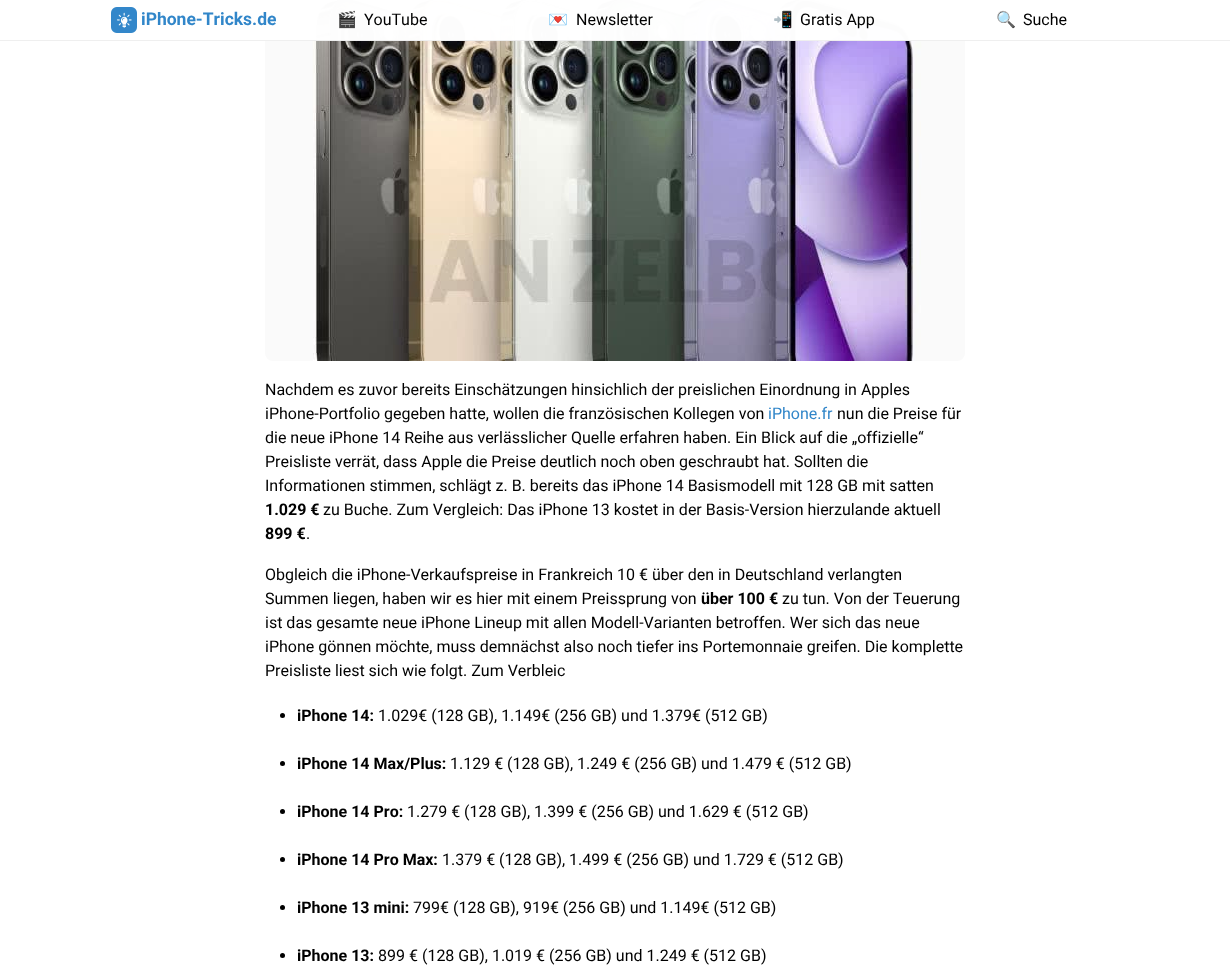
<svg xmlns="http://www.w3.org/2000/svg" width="1230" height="970">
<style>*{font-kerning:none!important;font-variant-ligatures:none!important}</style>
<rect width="100%" height="100%" fill="#fff"/>
<image x="265" y="0" width="700" height="361" href="media/2.png"/>
<rect x="265" width="700" height="40" fill="#fffffffc"/>
<rect y="40" width="1230" height="1" fill="#efefef"/>
<image x="111" y="7" width="26" height="26" href="media/1.png"/>
<text x="141" y="25" style="font-family:Roboto;font-size:17.5px;font-weight:bold;fill:#3186c9">iPhone-Tricks.de</text>
<text x="337" y="25" style="font-family:Noto Color Emoji;font-size:16px;fill:#000">🎬</text>
<text x="364" y="25" style="font-family:Roboto;font-size:16px;fill:#000">YouTube</text>
<text x="548" y="25" style="font-family:Noto Color Emoji;font-size:16px;fill:#000">💌</text>
<text x="576" y="25" style="font-family:Roboto;font-size:16px;fill:#000">Newsletter</text>
<text x="773" y="25" style="font-family:Noto Color Emoji;font-size:16px;fill:#000">📲</text>
<text x="800" y="25" style="font-family:Roboto;font-size:16px;fill:#000">Gratis App</text>
<text x="996" y="25" style="font-family:Noto Color Emoji;font-size:16px;fill:#000">🔍</text>
<text x="1023" y="25" style="font-family:Roboto;font-size:16px;fill:#000">Suche</text>
<text x="265" y="395" style="font-family:Roboto;font-size:16px;fill:#000">Nachdem es zuvor bereits Einschätzungen hinsichlich der preislichen Einordnung in Apples</text>
<text x="265" y="419" style="font-family:Roboto;font-size:16px;fill:#000">iPhone-Portfolio gegeben hatte, wollen die französischen Kollegen von</text>
<text x="768" y="419" style="font-family:Roboto;font-size:16px;fill:#3186c9">iPhone.fr</text>
<text x="837" y="419" style="font-family:Roboto;font-size:16px;fill:#000">nun die Preise für</text>
<text x="265" y="443" style="font-family:Roboto;font-size:16px;fill:#000">die neue iPhone 14 Reihe aus verlässlicher Quelle erfahren haben. Ein Blick auf die „offizielle“</text>
<text x="265" y="467" style="font-family:Roboto;font-size:16px;fill:#000">Preisliste verrät, dass Apple die Preise deutlich noch oben geschraubt hat. Sollten die</text>
<text x="265" y="491" style="font-family:Roboto;font-size:16px;fill:#000">Informationen stimmen, schlägt z. B. bereits das iPhone 14 Basismodell mit 128 GB mit satten</text>
<text x="265" y="515" style="font-family:Roboto;font-size:16px;font-weight:bold;fill:#000">1.029 €</text>
<text x="323" y="515" style="font-family:Roboto;font-size:16px;fill:#000">zu Buche. Zum Vergleich: Das iPhone 13 kostet in der Basis-Version hierzulande aktuell</text>
<text x="265" y="539" style="font-family:Roboto;font-size:16px;font-weight:bold;fill:#000">899 €</text>
<text x="306" y="539" style="font-family:Roboto;font-size:16px;fill:#000">.</text>
<text x="265" y="580" style="font-family:Roboto;font-size:16px;fill:#000">Obgleich die iPhone-Verkaufspreise in Frankreich 10 € über den in Deutschland verlangten</text>
<text x="265" y="604" style="font-family:Roboto;font-size:16px;fill:#000">Summen liegen, haben wir es hier mit einem Preissprung von</text>
<text x="701" y="604" style="font-family:Roboto;font-size:16px;font-weight:bold;fill:#000">über 100 €</text>
<text x="782" y="604" style="font-family:Roboto;font-size:16px;fill:#000">zu tun. Von der Teuerung</text>
<text x="265" y="628" style="font-family:Roboto;font-size:16px;fill:#000">ist das gesamte neue iPhone Lineup mit allen Modell-Varianten betroffen. Wer sich das neue</text>
<text x="265" y="652" style="font-family:Roboto;font-size:16px;fill:#000">iPhone gönnen möchte, muss demnächst also noch tiefer ins Portemonnaie greifen. Die komplette</text>
<text x="265" y="676" style="font-family:Roboto;font-size:16px;fill:#000">Preisliste liest sich wie folgt. Zum Verbleic</text>
<circle cx="282.5" cy="715.5" r="2.5" fill="#000"/>
<text x="297" y="721" style="font-family:Roboto;font-size:16px;font-weight:bold;fill:#000">iPhone 14:</text>
<text x="378" y="721" style="font-family:Roboto;font-size:16px;fill:#000">1.029€ (128 GB), 1.149€ (256 GB) und 1.379€ (512 GB)</text>
<circle cx="282.5" cy="763.5" r="2.5" fill="#000"/>
<text x="297" y="769" style="font-family:Roboto;font-size:16px;font-weight:bold;fill:#000">iPhone 14 Max/Plus:</text>
<text x="450" y="769" style="font-family:Roboto;font-size:16px;fill:#000">1.129 € (128 GB), 1.249 € (256 GB) und 1.479 € (512 GB)</text>
<circle cx="282.5" cy="811.5" r="2.5" fill="#000"/>
<text x="297" y="817" style="font-family:Roboto;font-size:16px;font-weight:bold;fill:#000">iPhone 14 Pro:</text>
<text x="407" y="817" style="font-family:Roboto;font-size:16px;fill:#000">1.279 € (128 GB), 1.399 € (256 GB) und 1.629 € (512 GB)</text>
<circle cx="282.5" cy="859.5" r="2.5" fill="#000"/>
<text x="297" y="865" style="font-family:Roboto;font-size:16px;font-weight:bold;fill:#000">iPhone 14 Pro Max:</text>
<text x="442" y="865" style="font-family:Roboto;font-size:16px;fill:#000">1.379 € (128 GB), 1.499 € (256 GB) und 1.729 € (512 GB)</text>
<circle cx="282.5" cy="907.5" r="2.5" fill="#000"/>
<text x="297" y="913" style="font-family:Roboto;font-size:16px;font-weight:bold;fill:#000">iPhone 13 mini:</text>
<text x="413" y="913" style="font-family:Roboto;font-size:16px;fill:#000">799€ (128 GB), 919€ (256 GB) und 1.149€ (512 GB)</text>
<circle cx="282.5" cy="955.5" r="2.5" fill="#000"/>
<text x="297" y="961" style="font-family:Roboto;font-size:16px;font-weight:bold;fill:#000">iPhone 13:</text>
<text x="378" y="961" style="font-family:Roboto;font-size:16px;fill:#000">899 € (128 GB), 1.019 € (256 GB) und 1.249 € (512 GB)</text>
</svg>
